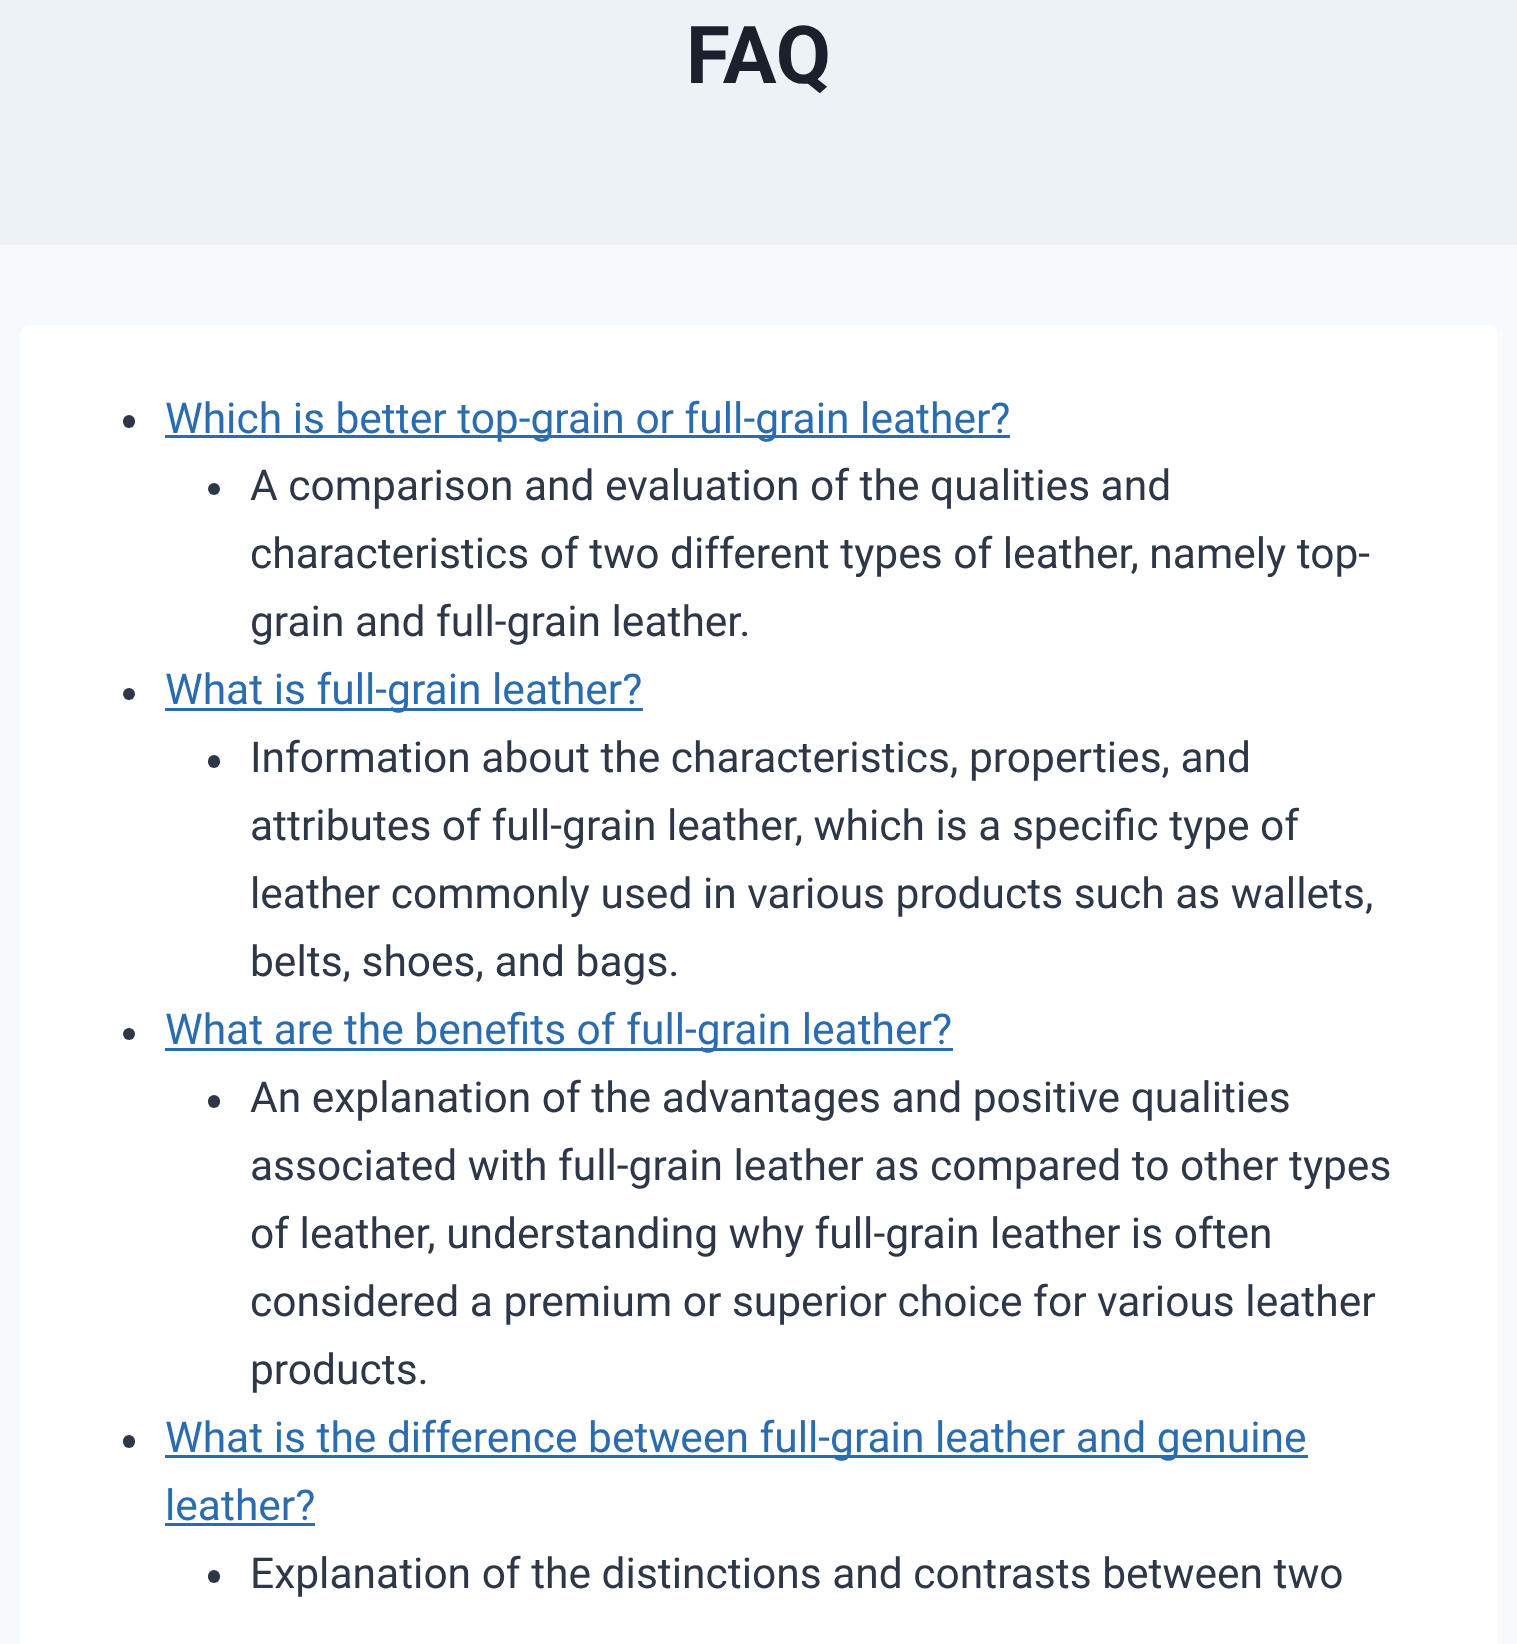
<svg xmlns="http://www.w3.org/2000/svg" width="1517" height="1644">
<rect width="100%" height="100%" fill="#f7fafc"/>
<rect width="1517" height="245" fill="#edf2f7"/>
<text x="686" y="83" style="font-family:Roboto;font-size:80px;font-weight:bold;fill:#1a202c">FAQ</text>
<rect x="20" y="325" width="1478" height="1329" rx="10" fill="#fff"/>
<rect x="123" y="415" width="12" height="13" rx="6" fill="#2d3748"/>
<rect x="165" y="435" width="845" height="3" fill="#2b6cb0"/>
<text x="165" y="433" style="font-family:Roboto;font-size:42.5px;fill:#2b6cb0">Which is better top-grain or full-grain leather?</text>
<circle cx="214" cy="489" r="6" fill="#2d3748"/>
<text x="250" y="500" style="font-family:Roboto;font-size:42.5px;fill:#2d3748">A comparison and evaluation of the qualities and</text>
<text x="250" y="568" style="font-family:Roboto;font-size:42.5px;fill:#2d3748">characteristics of two different types of leather, namely top-</text>
<text x="250" y="636" style="font-family:Roboto;font-size:42.5px;fill:#2d3748">grain and full-grain leather.</text>
<circle cx="129" cy="694" r="6" fill="#2d3748"/>
<rect x="165" y="708" width="478" height="3" fill="#2b6cb0"/>
<text x="165" y="704" style="font-family:Roboto;font-size:42.5px;fill:#2b6cb0">What is full-grain leather?</text>
<rect x="208" y="755" width="12" height="13" rx="6" fill="#2d3748"/>
<text x="250" y="772" style="font-family:Roboto;font-size:42.5px;fill:#2d3748">Information about the characteristics, properties, and</text>
<text x="250" y="840" style="font-family:Roboto;font-size:42.5px;fill:#2d3748">attributes of full-grain leather, which is a specific type of</text>
<text x="250" y="908" style="font-family:Roboto;font-size:42.5px;fill:#2d3748">leather commonly used in various products such as wallets,</text>
<text x="250" y="976" style="font-family:Roboto;font-size:42.5px;fill:#2d3748">belts, shoes, and bags.</text>
<circle cx="129" cy="1034" r="6" fill="#2d3748"/>
<rect x="165" y="1048" width="788" height="3" fill="#2b6cb0"/>
<text x="165" y="1044" style="font-family:Roboto;font-size:42.5px;fill:#2b6cb0">What are the benefits of full-grain leather?</text>
<rect x="208" y="1095" width="12" height="13" rx="6" fill="#2d3748"/>
<text x="250" y="1112" style="font-family:Roboto;font-size:42.5px;fill:#2d3748">An explanation of the advantages and positive qualities</text>
<text x="250" y="1180" style="font-family:Roboto;font-size:42.5px;fill:#2d3748">associated with full-grain leather as compared to other types</text>
<text x="250" y="1248" style="font-family:Roboto;font-size:42.5px;fill:#2d3748">of leather, understanding why full-grain leather is often</text>
<text x="250" y="1316" style="font-family:Roboto;font-size:42.5px;fill:#2d3748">considered a premium or superior choice for various leather</text>
<text x="250" y="1384" style="font-family:Roboto;font-size:42.5px;fill:#2d3748">products.</text>
<rect x="123" y="1435" width="12" height="13" rx="6" fill="#2d3748"/>
<rect x="165" y="1455" width="1143" height="3" fill="#2b6cb0"/>
<text x="165" y="1452" style="font-family:Roboto;font-size:42.5px;fill:#2b6cb0">What is the difference between full-grain leather and genuine</text>
<text x="165" y="1520" style="font-family:Roboto;font-size:42.5px;fill:#2b6cb0">leather?</text>
<rect x="165" y="1523" width="150" height="3" fill="#2b6cb0"/>
<rect x="208" y="1570" width="12" height="13" rx="6" fill="#2d3748"/>
<text x="250" y="1588" style="font-family:Roboto;font-size:42.5px;fill:#2d3748">Explanation of the distinctions and contrasts between two</text>
</svg>
